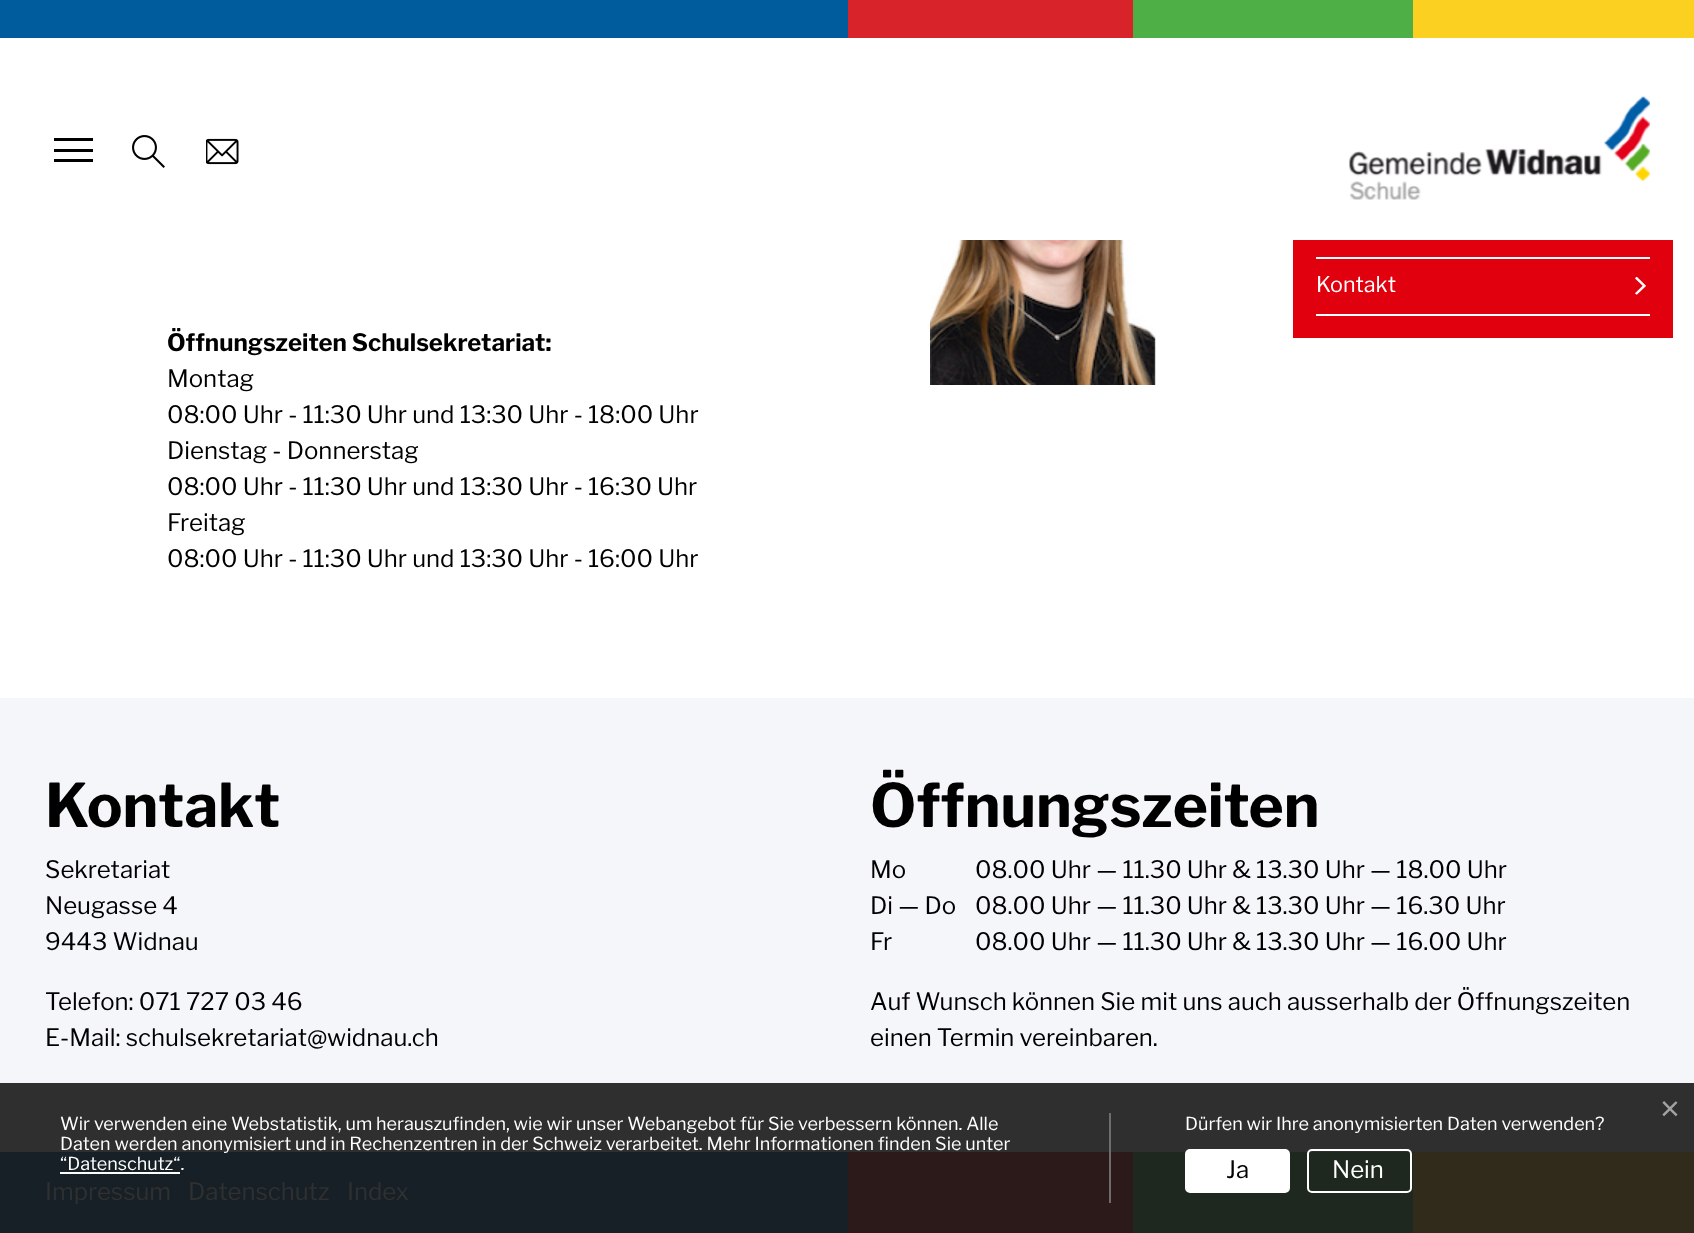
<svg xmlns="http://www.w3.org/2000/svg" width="1694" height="1233">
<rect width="100%" height="100%" fill="#fff"/>
<rect width="848" height="38" fill="#005c9c"/>
<rect x="848" width="285" height="38" fill="#d8232a"/>
<rect x="1133" width="280" height="38" fill="#4eaf46"/>
<rect x="1413" width="281" height="38" fill="#fbd020"/>
<rect x="54" y="138" width="39" height="3" fill="#000"/>
<rect x="54" y="149" width="39" height="3" fill="#000"/>
<rect x="54" y="159" width="39" height="3" fill="#000"/>
<image x="132" y="135" width="33" height="33" href="media/1.png"/>
<image x="206" y="138" width="33" height="27" href="media/2.png"/>
<image x="1349" y="96" width="301" height="104" href="media/3.png"/>
<rect x="1293" y="240" width="380" height="98" fill="#e1000d"/>
<rect x="1316" y="257" width="334" height="2" fill="#fff"/>
<rect x="1316" y="314" width="334" height="2" fill="#fff"/>
<text x="1316" y="292" style="font-family:Libre Franklin;font-size:21.5px;fill:#fff">Kontakt</text>
<image x="1635" y="277" width="11" height="18" href="media/4.png"/>
<image x="930" y="240" width="226" height="145" href="media/5.png"/>
<text x="167" y="351" style="font-family:Libre Franklin;font-size:24px;font-weight:bold;fill:#000">Öffnungszeiten Schulsekretariat:</text>
<text x="167" y="387" style="font-family:Libre Franklin;font-size:24px;fill:#000">Montag</text>
<text x="167" y="423" style="font-family:Libre Franklin;font-size:24px;fill:#000">08:00 Uhr - 11:30 Uhr und 13:30 Uhr - 18:00 Uhr</text>
<text x="167" y="459" style="font-family:Libre Franklin;font-size:24px;fill:#000">Dienstag - Donnerstag</text>
<text x="167" y="495" style="font-family:Libre Franklin;font-size:24px;fill:#000">08:00 Uhr - 11:30 Uhr und 13:30 Uhr - 16:30 Uhr</text>
<text x="167" y="531" style="font-family:Libre Franklin;font-size:24px;fill:#000">Freitag</text>
<text x="167" y="567" style="font-family:Libre Franklin;font-size:24px;fill:#000">08:00 Uhr - 11:30 Uhr und 13:30 Uhr - 16:00 Uhr</text>
<rect y="698" width="1694" height="385" fill="#f5f6fa"/>
<rect y="1083" width="1694" height="69" fill="#2f2f2f"/>
<text x="45" y="827" style="font-family:Libre Franklin;font-size:60px;font-weight:bold;fill:#000">Kontakt</text>
<text x="45" y="878" style="font-family:Libre Franklin;font-size:24px;fill:#000">Sekretariat</text>
<text x="45" y="914" style="font-family:Libre Franklin;font-size:24px;fill:#000">Neugasse 4</text>
<text x="45" y="950" style="font-family:Libre Franklin;font-size:24px;fill:#000">9443 Widnau</text>
<text x="45" y="1010" style="font-family:Libre Franklin;font-size:24px;fill:#000">Telefon: 071 727 03 46</text>
<text x="45" y="1046" style="font-family:Libre Franklin;font-size:24px;fill:#000">E-Mail: schulsekretariat@widnau.ch</text>
<text x="870" y="827" style="font-family:Libre Franklin;font-size:60px;font-weight:bold;fill:#000">Öffnungszeiten</text>
<text x="870" y="878" style="font-family:Libre Franklin;font-size:24px;fill:#000">Mo</text>
<text x="975" y="878" style="font-family:Libre Franklin;font-size:24px;fill:#000">08.00 Uhr — 11.30 Uhr &amp; 13.30 Uhr — 18.00 Uhr</text>
<text x="870" y="914" style="font-family:Libre Franklin;font-size:24px;fill:#000">Di — Do</text>
<text x="975" y="914" style="font-family:Libre Franklin;font-size:24px;fill:#000">08.00 Uhr — 11.30 Uhr &amp; 13.30 Uhr — 16.30 Uhr</text>
<text x="870" y="950" style="font-family:Libre Franklin;font-size:24px;fill:#000">Fr</text>
<text x="975" y="950" style="font-family:Libre Franklin;font-size:24px;fill:#000">08.00 Uhr — 11.30 Uhr &amp; 13.30 Uhr — 16.00 Uhr</text>
<text x="870" y="1010" style="font-family:Libre Franklin;font-size:24px;fill:#000">Auf Wunsch können Sie mit uns auch ausserhalb der Öffnungszeiten</text>
<text x="870" y="1046" style="font-family:Libre Franklin;font-size:24px;fill:#000">einen Termin vereinbaren.</text>
<rect y="1152" width="848" height="81" fill="#172026"/>
<rect x="848" y="1152" width="285" height="81" fill="#2c1a1b"/>
<rect x="1133" y="1152" width="280" height="81" fill="#1e281e"/>
<rect x="1413" y="1152" width="281" height="81" fill="#302b1a"/>
<text x="45" y="1200" style="font-family:Libre Franklin;font-size:24px;fill:#303030">Impressum</text>
<text x="188" y="1200" style="font-family:Libre Franklin;font-size:24px;fill:#303030">Datenschutz</text>
<text x="347" y="1200" style="font-family:Libre Franklin;font-size:24px;fill:#303030">Index</text>
<text x="1660" y="1120" style="font-family:Liberation Sans;font-size:34px;fill:#a2a2a2">×</text>
<rect x="1109" y="1113" width="2" height="90" fill="#6d6d6d"/>
<text x="60" y="1130" style="font-family:Libre Franklin;font-size:18px;fill:#fff">Wir verwenden eine Webstatistik, um herauszufinden, wie wir unser Webangebot für Sie verbessern können. Alle</text>
<text x="60" y="1150" style="font-family:Libre Franklin;font-size:18px;fill:#fff">Daten werden anonymisiert und in Rechenzentren in der Schweiz verarbeitet. Mehr Informationen finden Sie unter</text>
<text x="60" y="1170" style="font-family:Libre Franklin;font-size:18px;fill:#fff">“Datenschutz“.</text>
<rect x="60" y="1172" width="120" height="2" fill="#fff"/>
<text x="1185" y="1130" style="font-family:Libre Franklin;font-size:18px;fill:#fff">Dürfen wir Ihre anonymisierten Daten verwenden?</text>
<rect x="1186" y="1150" width="103" height="42" rx="4" fill="#fff" stroke="#fff" stroke-width="2"/>
<text x="1226" y="1178" style="font-family:Libre Franklin;font-size:24px;fill:#000">Ja</text>
<rect x="1308" y="1150" width="103" height="42" rx="4" fill="none" stroke="#fff" stroke-width="2"/>
<text x="1332" y="1178" style="font-family:Libre Franklin;font-size:24px;fill:#fff">Nein</text>
</svg>
